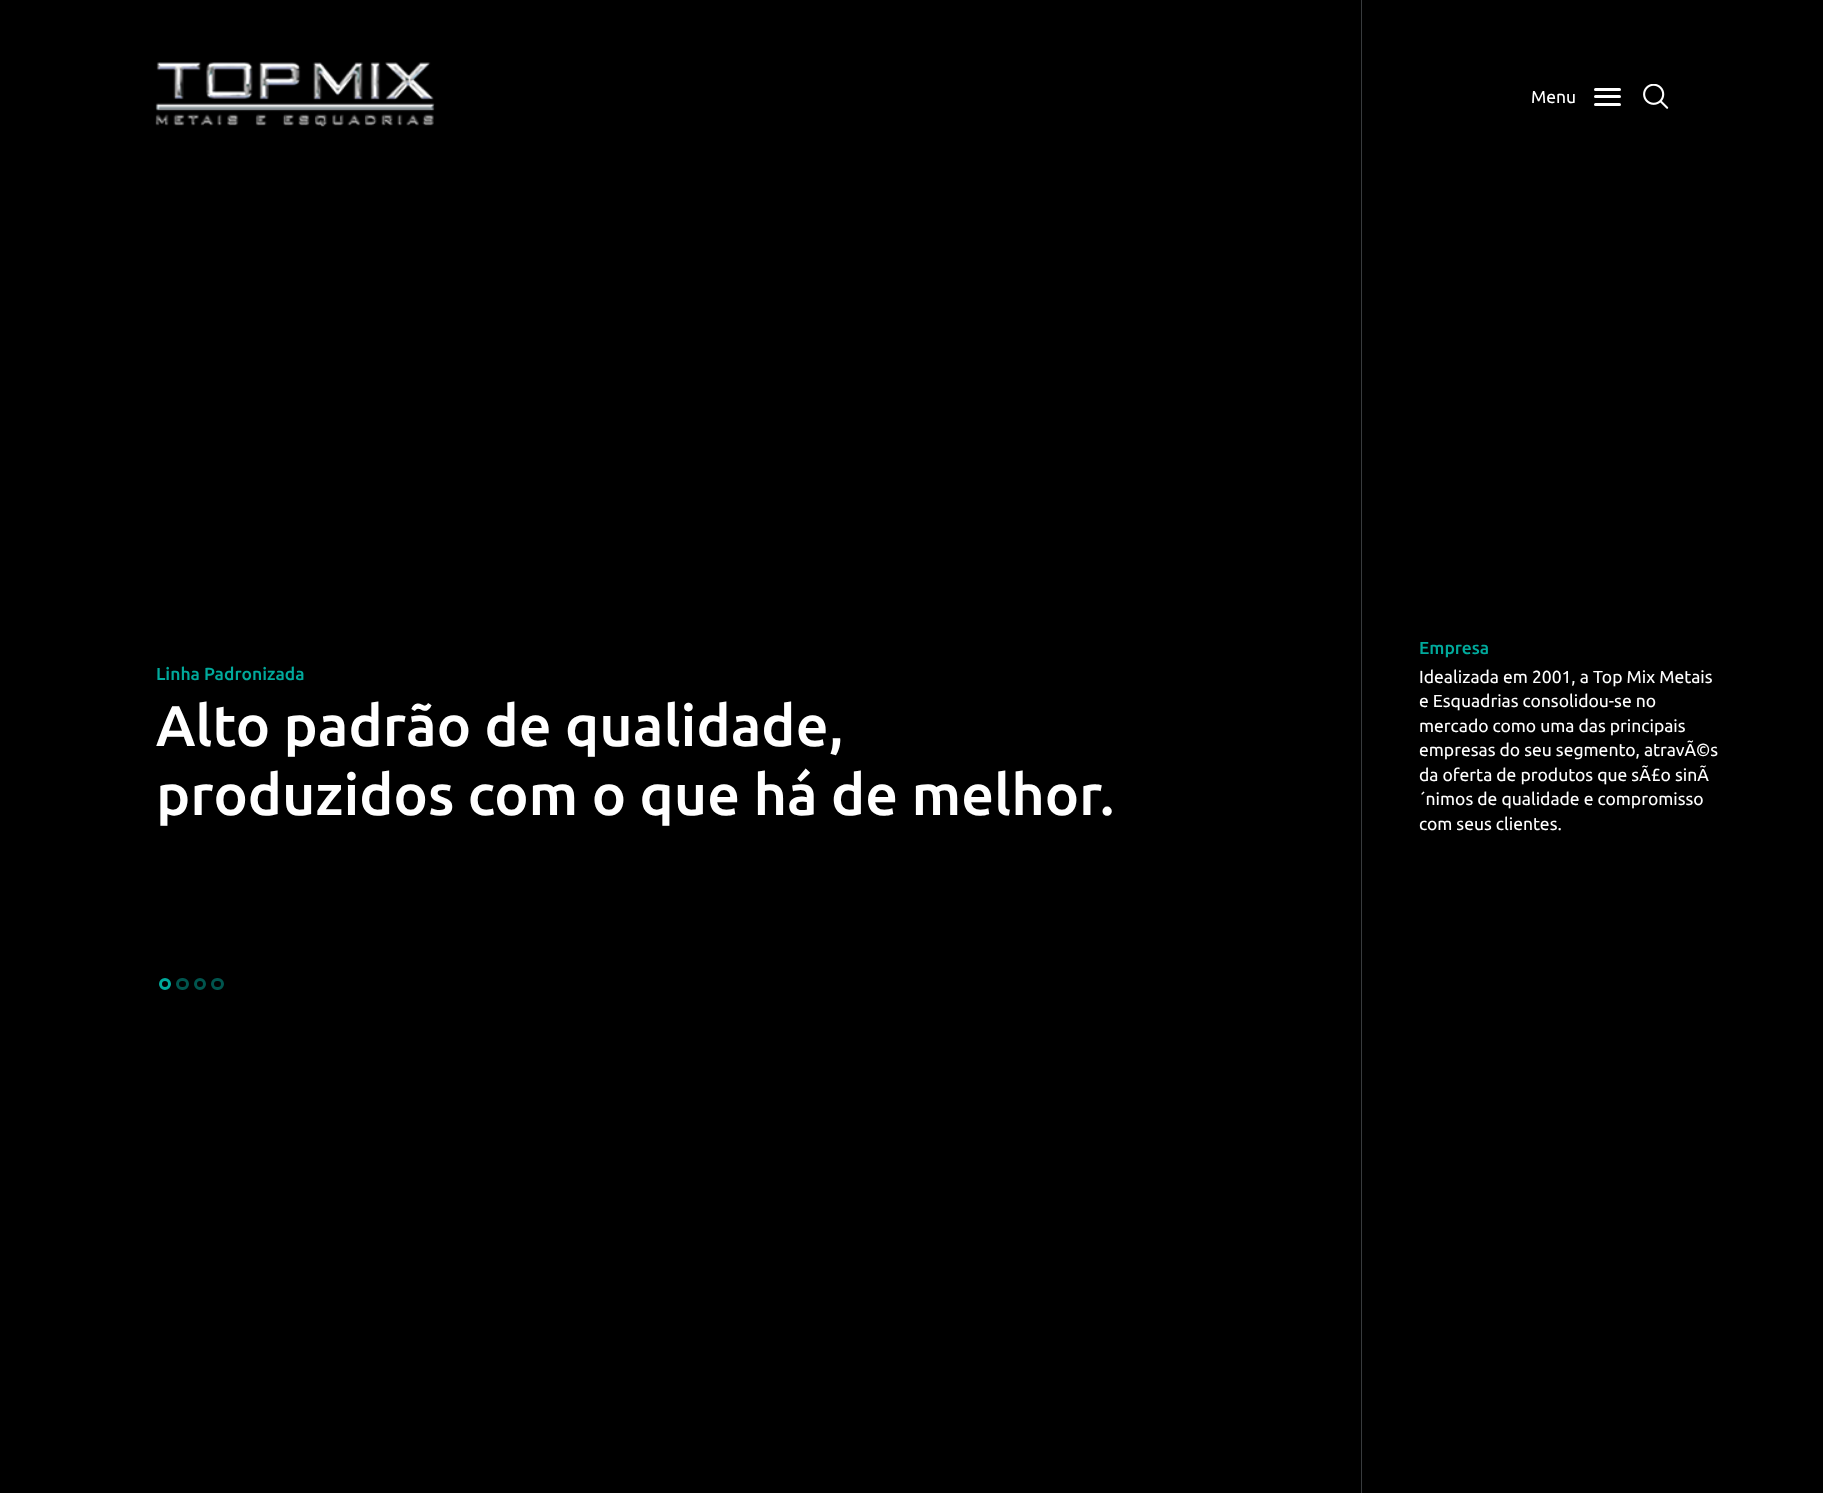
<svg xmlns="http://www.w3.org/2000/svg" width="1823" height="1493">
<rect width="100%" height="100%" fill="#000"/>
<image x="155" y="62" width="280" height="65" href="media/1.png"/>
<rect x="1594" y="88" width="27" height="3" rx="1.5" fill="#fff"/>
<text x="1531" y="103" style="font-family:Ubuntu;font-size:17.5px;fill:#fff">Menu</text>
<rect x="1594" y="95" width="27" height="3" rx="1.5" fill="#fff"/>
<rect x="1594" y="103" width="27" height="3" rx="1.5" fill="#fff"/>
<image x="1643" y="84" width="26" height="25" href="media/2.png"/>
<text x="156" y="680" style="font-family:Ubuntu;font-size:17.5px;font-weight:500;fill:#00aa9c">Linha Padronizada</text>
<text x="156" y="746" style="font-family:Ubuntu;font-size:57.5px;font-weight:500;fill:#fff">Alto padrão de qualidade,</text>
<text x="156" y="815" style="font-family:Ubuntu;font-size:57.5px;font-weight:500;fill:#fff">produzidos com o que há de melhor.</text>
<circle cx="165" cy="984" r="4.5" fill="none" stroke="#00aa9c" stroke-width="3"/>
<rect x="177.5" y="979.5" width="10" height="9" rx="4.5" fill="none" stroke="#00554e" stroke-width="3"/>
<circle cx="200" cy="984" r="4.5" fill="none" stroke="#00554e" stroke-width="3"/>
<rect x="212.5" y="979.5" width="10" height="9" rx="4.5" fill="none" stroke="#00554e" stroke-width="3"/>
<rect x="1361" width="1" height="1493" fill="#383b3d"/>
<text x="1419" y="654" style="font-family:Ubuntu;font-size:17.5px;font-weight:500;fill:#00aa9c">Empresa</text>
<text x="1419" y="683" style="font-family:Ubuntu;font-size:17.5px;fill:#fff">Idealizada em 2001, a Top Mix Metais</text>
<text x="1419" y="707" style="font-family:Ubuntu;font-size:17.5px;fill:#fff">e Esquadrias consolidou-se no</text>
<text x="1419" y="732" style="font-family:Ubuntu;font-size:17.5px;fill:#fff">mercado como uma das principais</text>
<text x="1419" y="756" style="font-family:Ubuntu;font-size:17.5px;fill:#fff">empresas do seu segmento, atravÃ©s</text>
<text x="1419" y="781" style="font-family:Ubuntu;font-size:17.5px;fill:#fff">da oferta de produtos que sÃ£o sinÃ</text>
<text x="1419" y="805" style="font-family:Ubuntu;font-size:17.5px;fill:#fff">´nimos de qualidade e compromisso</text>
<text x="1419" y="830" style="font-family:Ubuntu;font-size:17.5px;fill:#fff">com seus clientes.</text>
</svg>
